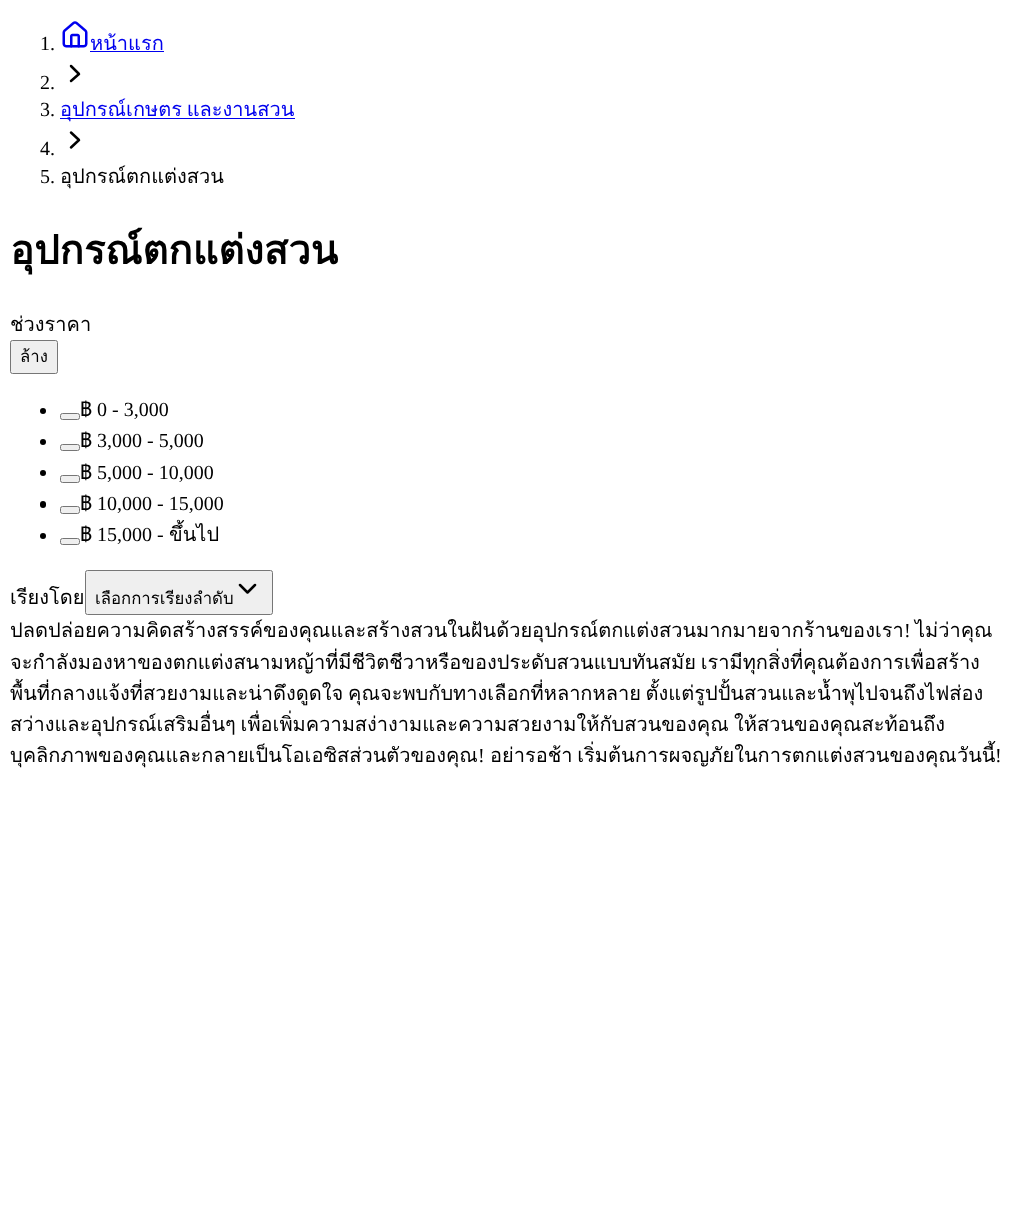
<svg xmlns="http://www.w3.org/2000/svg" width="1016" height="1223">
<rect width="100%" height="100%" fill="#fff"/>
<text x="40" y="50" style="font-family:Liberation Serif;font-size:20px;fill:#000">1.</text>
<image x="62" y="21" width="26" height="27" href="media/1.png"/>
<text x="90" y="50" style="font-family:Loma;font-size:20px;fill:#00e">หน้าแรก</text>
<rect x="90" y="51" width="74" height="1" fill="#00e"/>
<text x="40" y="89" style="font-family:Liberation Serif;font-size:20px;fill:#000">2.</text>
<path d="M71 81l8-7l-8-8" fill="none" stroke="#000" stroke-width="2.5" stroke-linecap="round" stroke-linejoin="round"/>
<text x="40" y="116" style="font-family:Liberation Serif;font-size:20px;fill:#000">3.</text>
<rect x="60" y="118" width="235" height="1" fill="#00e"/>
<text x="60" y="116" word-spacing="-2" style="font-family:Loma;font-size:20px;fill:#00e">อุปกรณ์เกษตร และงานสวน</text>
<text x="40" y="155" style="font-family:Liberation Serif;font-size:20px;fill:#000">4.</text>
<path d="M71 147.5l8-7.5l-8-7.5" fill="none" stroke="#000" stroke-width="2.5" stroke-linecap="round" stroke-linejoin="round"/>
<text x="40" y="183" style="font-family:Liberation Serif;font-size:20px;fill:#000">5.</text>
<text x="60" y="183" style="font-family:Loma;font-size:20px;fill:#000">อุปกรณ์ตกแต่งสวน</text>
<text x="10" y="264" style="font-family:Loma;font-size:40px;font-weight:bold;fill:#000">อุปกรณ์ตกแต่งสวน</text>
<text x="10" y="331" style="font-family:Loma;font-size:20px;fill:#000">ช่วงราคา</text>
<rect x="10.5" y="340.5" width="47" height="33" rx="2" fill="#efefef" stroke="#767676"/>
<text x="20" y="362" style="font-family:Loma;font-size:16.75px;fill:#000">ล้าง</text>
<circle cx="43" cy="411" r="3" fill="#000"/>
<rect x="60.5" y="413.5" width="19" height="6" rx="2" fill="#efefef" stroke="#767676"/>
<text x="80" y="416" style="font-family:Loma;font-size:20px;fill:#000">฿</text>
<text x="97" y="416" style="font-family:Liberation Serif;font-size:20px;fill:#000">0 - 3,000</text>
<circle cx="43" cy="442" r="3" fill="#000"/>
<rect x="60.5" y="444.5" width="19" height="6" rx="2" fill="#efefef" stroke="#767676"/>
<text x="80" y="447" style="font-family:Loma;font-size:20px;fill:#000">฿</text>
<text x="97" y="447" style="font-family:Liberation Serif;font-size:20px;fill:#000">3,000 - 5,000</text>
<circle cx="43" cy="473" r="3" fill="#000"/>
<rect x="60.5" y="475.5" width="19" height="7" rx="2" fill="#efefef" stroke="#767676"/>
<text x="80" y="479" style="font-family:Loma;font-size:20px;fill:#000">฿</text>
<text x="97" y="479" style="font-family:Liberation Serif;font-size:20px;fill:#000">5,000 - 10,000</text>
<rect x="40" y="501" width="6" height="7" rx="3" fill="#000"/>
<rect x="60.5" y="506.5" width="19" height="7" rx="2" fill="#efefef" stroke="#767676"/>
<text x="80" y="510" style="font-family:Loma;font-size:20px;fill:#000">฿</text>
<text x="97" y="510" style="font-family:Liberation Serif;font-size:20px;fill:#000">10,000 - 15,000</text>
<circle cx="43" cy="536" r="3" fill="#000"/>
<rect x="60.5" y="538.5" width="19" height="6" rx="2" fill="#efefef" stroke="#767676"/>
<text x="80" y="541" style="font-family:Loma;font-size:20px;fill:#000">฿</text>
<text x="97" y="541" style="font-family:Liberation Serif;font-size:20px;fill:#000">15,000 -</text>
<text x="169" y="541" style="font-family:Loma;font-size:20px;fill:#000">ขึ้นไป</text>
<text x="10" y="604" style="font-family:Loma;font-size:20px;fill:#000">เรียงโดย</text>
<rect x="85.5" y="570.5" width="187" height="44" rx="2" fill="#efefef" stroke="#767676"/>
<text x="95" y="604" style="font-family:Loma;font-size:16.75px;fill:#000">เลือกการเรียงลำดับ</text>
<path d="M240 585l7.5 7.5l7.5-7.5" fill="none" stroke="#000" stroke-width="2.5" stroke-linecap="round" stroke-linejoin="round"/>
<text x="10" y="637" style="font-family:Loma;font-size:20px;fill:#000">ปลดปล่อยความคิดสร้างสรรค์ของคุณและสร้างสวนในฝันด้วยอุปกรณ์ตกแต่งสวนมากมายจากร้านของเรา</text>
<text x="904" y="637" style="font-family:Liberation Serif;font-size:20px;fill:#000">!</text>
<text x="915" y="637" style="font-family:Loma;font-size:20px;fill:#000">ไม่ว่าคุณ</text>
<text x="10" y="669" word-spacing="-2" style="font-family:Loma;font-size:20px;fill:#000">จะกำลังมองหาของตกแต่งสนามหญ้าที่มีชีวิตชีวาหรือของประดับสวนแบบทันสมัย เรามีทุกสิ่งที่คุณต้องการเพื่อสร้าง</text>
<text x="10" y="700" word-spacing="-2" style="font-family:Loma;font-size:20px;fill:#000">พื้นที่กลางแจ้งที่สวยงามและน่าดึงดูดใจ คุณจะพบกับทางเลือกที่หลากหลาย ตั้งแต่รูปปั้นสวนและน้ำพุไปจนถึงไฟส่อง</text>
<text x="10" y="731" word-spacing="-2" style="font-family:Loma;font-size:20px;fill:#000">สว่างและอุปกรณ์เสริมอื่นๆ เพื่อเพิ่มความสง่างามและความสวยงามให้กับสวนของคุณ</text>
<text x="734" y="731" style="font-family:Loma;font-size:20px;fill:#000">ให้สวนของคุณสะท้อนถึง</text>
<text x="10" y="762" style="font-family:Loma;font-size:20px;fill:#000">บุคลิกภาพของคุณและกลายเป็นโอเอซิสส่วนตัวของคุณ</text>
<text x="478" y="762" style="font-family:Liberation Serif;font-size:20px;fill:#000">!</text>
<text x="490" y="762" word-spacing="-2" style="font-family:Loma;font-size:20px;fill:#000">อย่ารอช้า เริ่มต้นการผจญภัยในการตกแต่งสวนของคุณวันนี้</text>
<text x="995" y="762" style="font-family:Liberation Serif;font-size:20px;fill:#000">!</text>
</svg>
